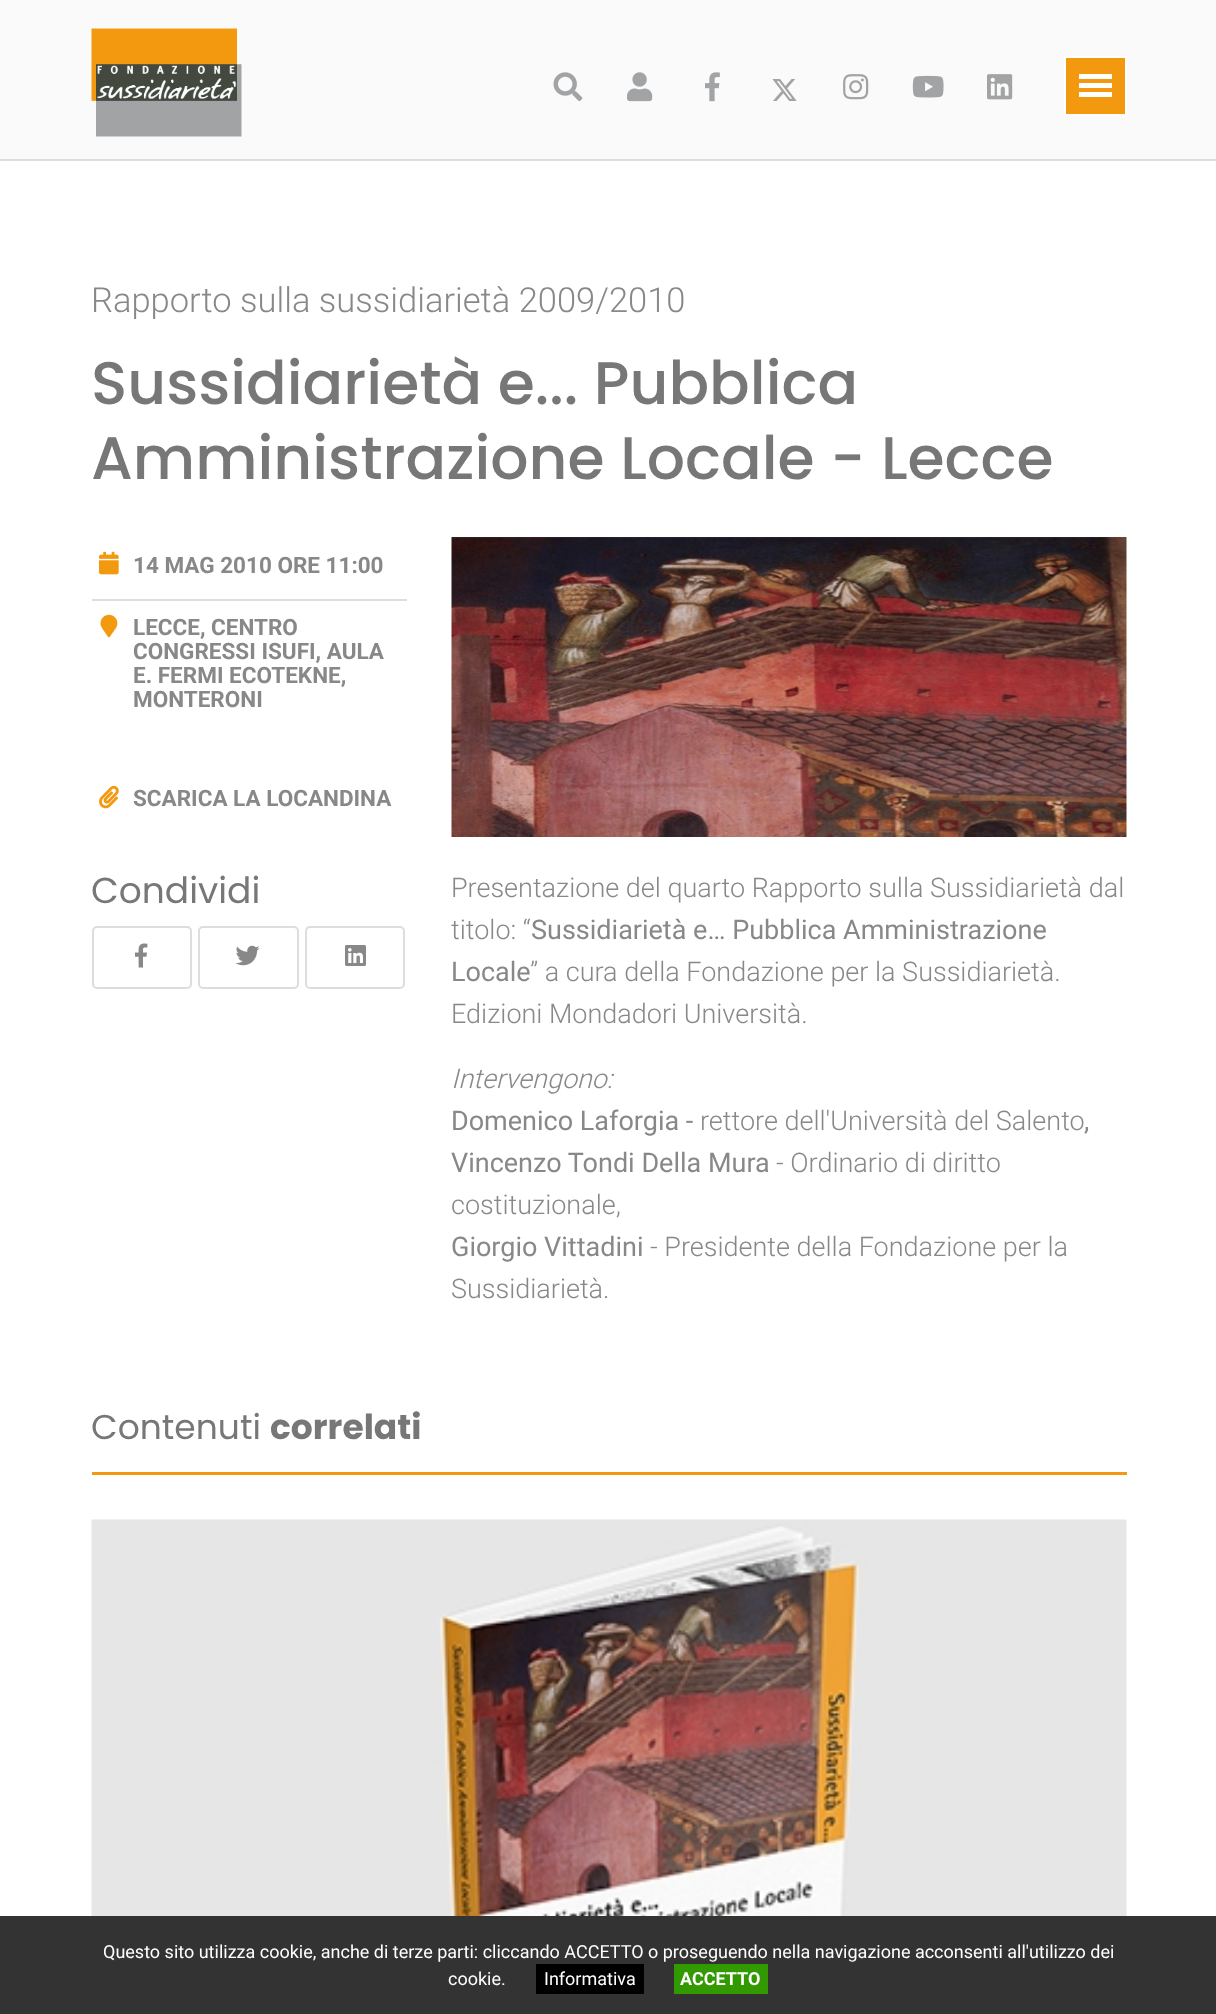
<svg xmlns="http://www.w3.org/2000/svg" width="1216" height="2014">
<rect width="100%" height="100%" fill="#fff"/>
<rect width="1216" height="159" fill="#fafafa"/>
<rect y="159" width="1216" height="2" fill="#ddd"/>
<image x="91" y="28" width="151" height="109" href="media/1.png"/>
<image x="553" y="72" width="30" height="30" href="media/2.png"/>
<image x="627" y="72" width="26" height="30" href="media/3.png"/>
<image x="705" y="72" width="15" height="30" href="media/4.png"/>
<image x="772" y="79" width="25" height="22" href="media/5.png"/>
<image x="843" y="74" width="26" height="26" href="media/6.png"/>
<image x="912" y="75" width="32" height="23" href="media/7.png"/>
<image x="987" y="74" width="26" height="26" href="media/8.png"/>
<rect x="1065" y="57" width="61" height="58" fill="#f39910" stroke="#fff" stroke-width="2"/>
<rect x="1079" y="74" width="33" height="5" fill="#fff"/>
<rect x="1079" y="83" width="33" height="5" fill="#fff"/>
<rect x="1079" y="92" width="33" height="5" fill="#fff"/>
<text x="91" y="312" style="font-family:Roboto;font-size:34.5px;font-weight:300;fill:#888">Rapporto sulla sussidiarietà 2009/2010</text>
<text x="91" y="404" style="font-family:Poppins;font-size:60px;font-weight:500;fill:#777">Sussidiarietà e... Pubblica</text>
<text x="91" y="479" style="font-family:Poppins;font-size:60px;font-weight:500;fill:#777">Amministrazione Locale - Lecce</text>
<rect x="92" y="599" width="315" height="2" fill="#ddd"/>
<image x="99" y="551" width="20" height="24" href="media/9.png"/>
<text x="133" y="573" style="font-family:Roboto;font-size:22.5px;font-weight:bold;fill:#888">14 MAG 2010 ORE 11:00</text>
<image x="100" y="614" width="18" height="24" href="media/10.png"/>
<text x="133" y="635" style="font-family:Roboto;font-size:22.5px;font-weight:bold;fill:#888">LECCE, CENTRO</text>
<text x="133" y="659" style="font-family:Roboto;font-size:22.5px;font-weight:bold;fill:#888">CONGRESSI ISUFI, AULA</text>
<text x="133" y="683" style="font-family:Roboto;font-size:22.5px;font-weight:bold;fill:#888">E. FERMI ECOTEKNE,</text>
<text x="133" y="707" style="font-family:Roboto;font-size:22.5px;font-weight:bold;fill:#888">MONTERONI</text>
<image x="99" y="785" width="20" height="24" href="media/11.png"/>
<text x="133" y="806" style="font-family:Roboto;font-size:22.5px;font-weight:bold;fill:#888">SCARICA LA LOCANDINA</text>
<text x="91" y="903" style="font-family:Poppins;font-size:36px;fill:#777">Condividi</text>
<rect x="93" y="927" width="98" height="61" rx="4" fill="none" stroke="#ddd" stroke-width="2"/>
<image x="135" y="943" width="13" height="25" href="media/12.png"/>
<rect x="199" y="927" width="99" height="61" rx="4" fill="none" stroke="#ddd" stroke-width="2"/>
<image x="235" y="945" width="25" height="21" href="media/13.png"/>
<rect x="306" y="927" width="98" height="61" rx="4" fill="none" stroke="#ddd" stroke-width="2"/>
<image x="345" y="945" width="21" height="21" href="media/14.png"/>
<image x="451" y="537" width="676" height="300" href="media/15.png"/>
<text x="451" y="897" style="font-family:Roboto;font-size:27px;font-weight:300;fill:#888">Presentazione del quarto Rapporto sulla Sussidiarietà dal</text>
<text x="451" y="939" style="font-family:Roboto;font-size:27px;font-weight:300;fill:#888">titolo: “</text>
<text x="531" y="939" style="font-family:Roboto;font-size:27px;fill:#888">Sussidiarietà e… Pubblica Amministrazione</text>
<text x="451" y="981" style="font-family:Roboto;font-size:27px;fill:#888">Locale</text>
<text x="530" y="981" style="font-family:Roboto;font-size:27px;font-weight:300;fill:#888">” a cura della Fondazione per la Sussidiarietà.</text>
<text x="451" y="1023" style="font-family:Roboto;font-size:27px;font-weight:300;fill:#888">Edizioni Mondadori Università.</text>
<text x="451" y="1088" style="font-family:Roboto;font-size:27px;font-weight:300;font-style:italic;fill:#888">Intervengono:</text>
<text x="451" y="1130" style="font-family:Roboto;font-size:27px;fill:#888">Domenico Laforgia -</text>
<text x="700" y="1130" style="font-family:Roboto;font-size:27px;font-weight:300;fill:#888">rettore dell'Università del Salento</text>
<text x="1084" y="1130" style="font-family:Roboto;font-size:27px;fill:#888">,</text>
<text x="451" y="1172" style="font-family:Roboto;font-size:27px;fill:#888">Vincenzo Tondi Della Mura</text>
<text x="776" y="1172" style="font-family:Roboto;font-size:27px;font-weight:300;fill:#888">- Ordinario di diritto</text>
<text x="451" y="1214" style="font-family:Roboto;font-size:27px;font-weight:300;fill:#888">costituzionale,</text>
<text x="451" y="1256" style="font-family:Roboto;font-size:27px;fill:#888">Giorgio Vittadini</text>
<text x="650" y="1256" style="font-family:Roboto;font-size:27px;font-weight:300;fill:#888">- Presidente della Fondazione per la</text>
<text x="451" y="1298" style="font-family:Roboto;font-size:27px;font-weight:300;fill:#888">Sussidiarietà.</text>
<rect x="92" y="1472" width="1035" height="3" fill="#f39910"/>
<text x="91" y="1439" style="font-family:Poppins;font-size:34.5px;fill:#777">Contenuti</text>
<text x="270" y="1439" style="font-family:Poppins;font-size:34.5px;font-weight:bold;fill:#777">correlati</text>
<image x="91" y="1519" width="1036" height="397" href="media/16.png"/>
<rect y="1916" width="1216" height="98" fill="#333"/>
<text x="103" y="1958" style="font-family:Roboto;font-size:18px;fill:#fff">Questo sito utilizza cookie, anche di terze parti: cliccando ACCETTO o proseguendo nella navigazione acconsenti all'utilizzo dei</text>
<text x="448" y="1985" style="font-family:Roboto;font-size:18px;fill:#fff">cookie.</text>
<rect x="536" y="1964" width="108" height="30" fill="#000"/>
<text x="544" y="1985" style="font-family:Roboto;font-size:18px;fill:#fff">Informativa</text>
<rect x="674" y="1964" width="94" height="30" fill="#390"/>
<text x="680" y="1985" style="font-family:Roboto;font-size:18px;font-weight:bold;fill:#fff">ACCETTO</text>
</svg>
